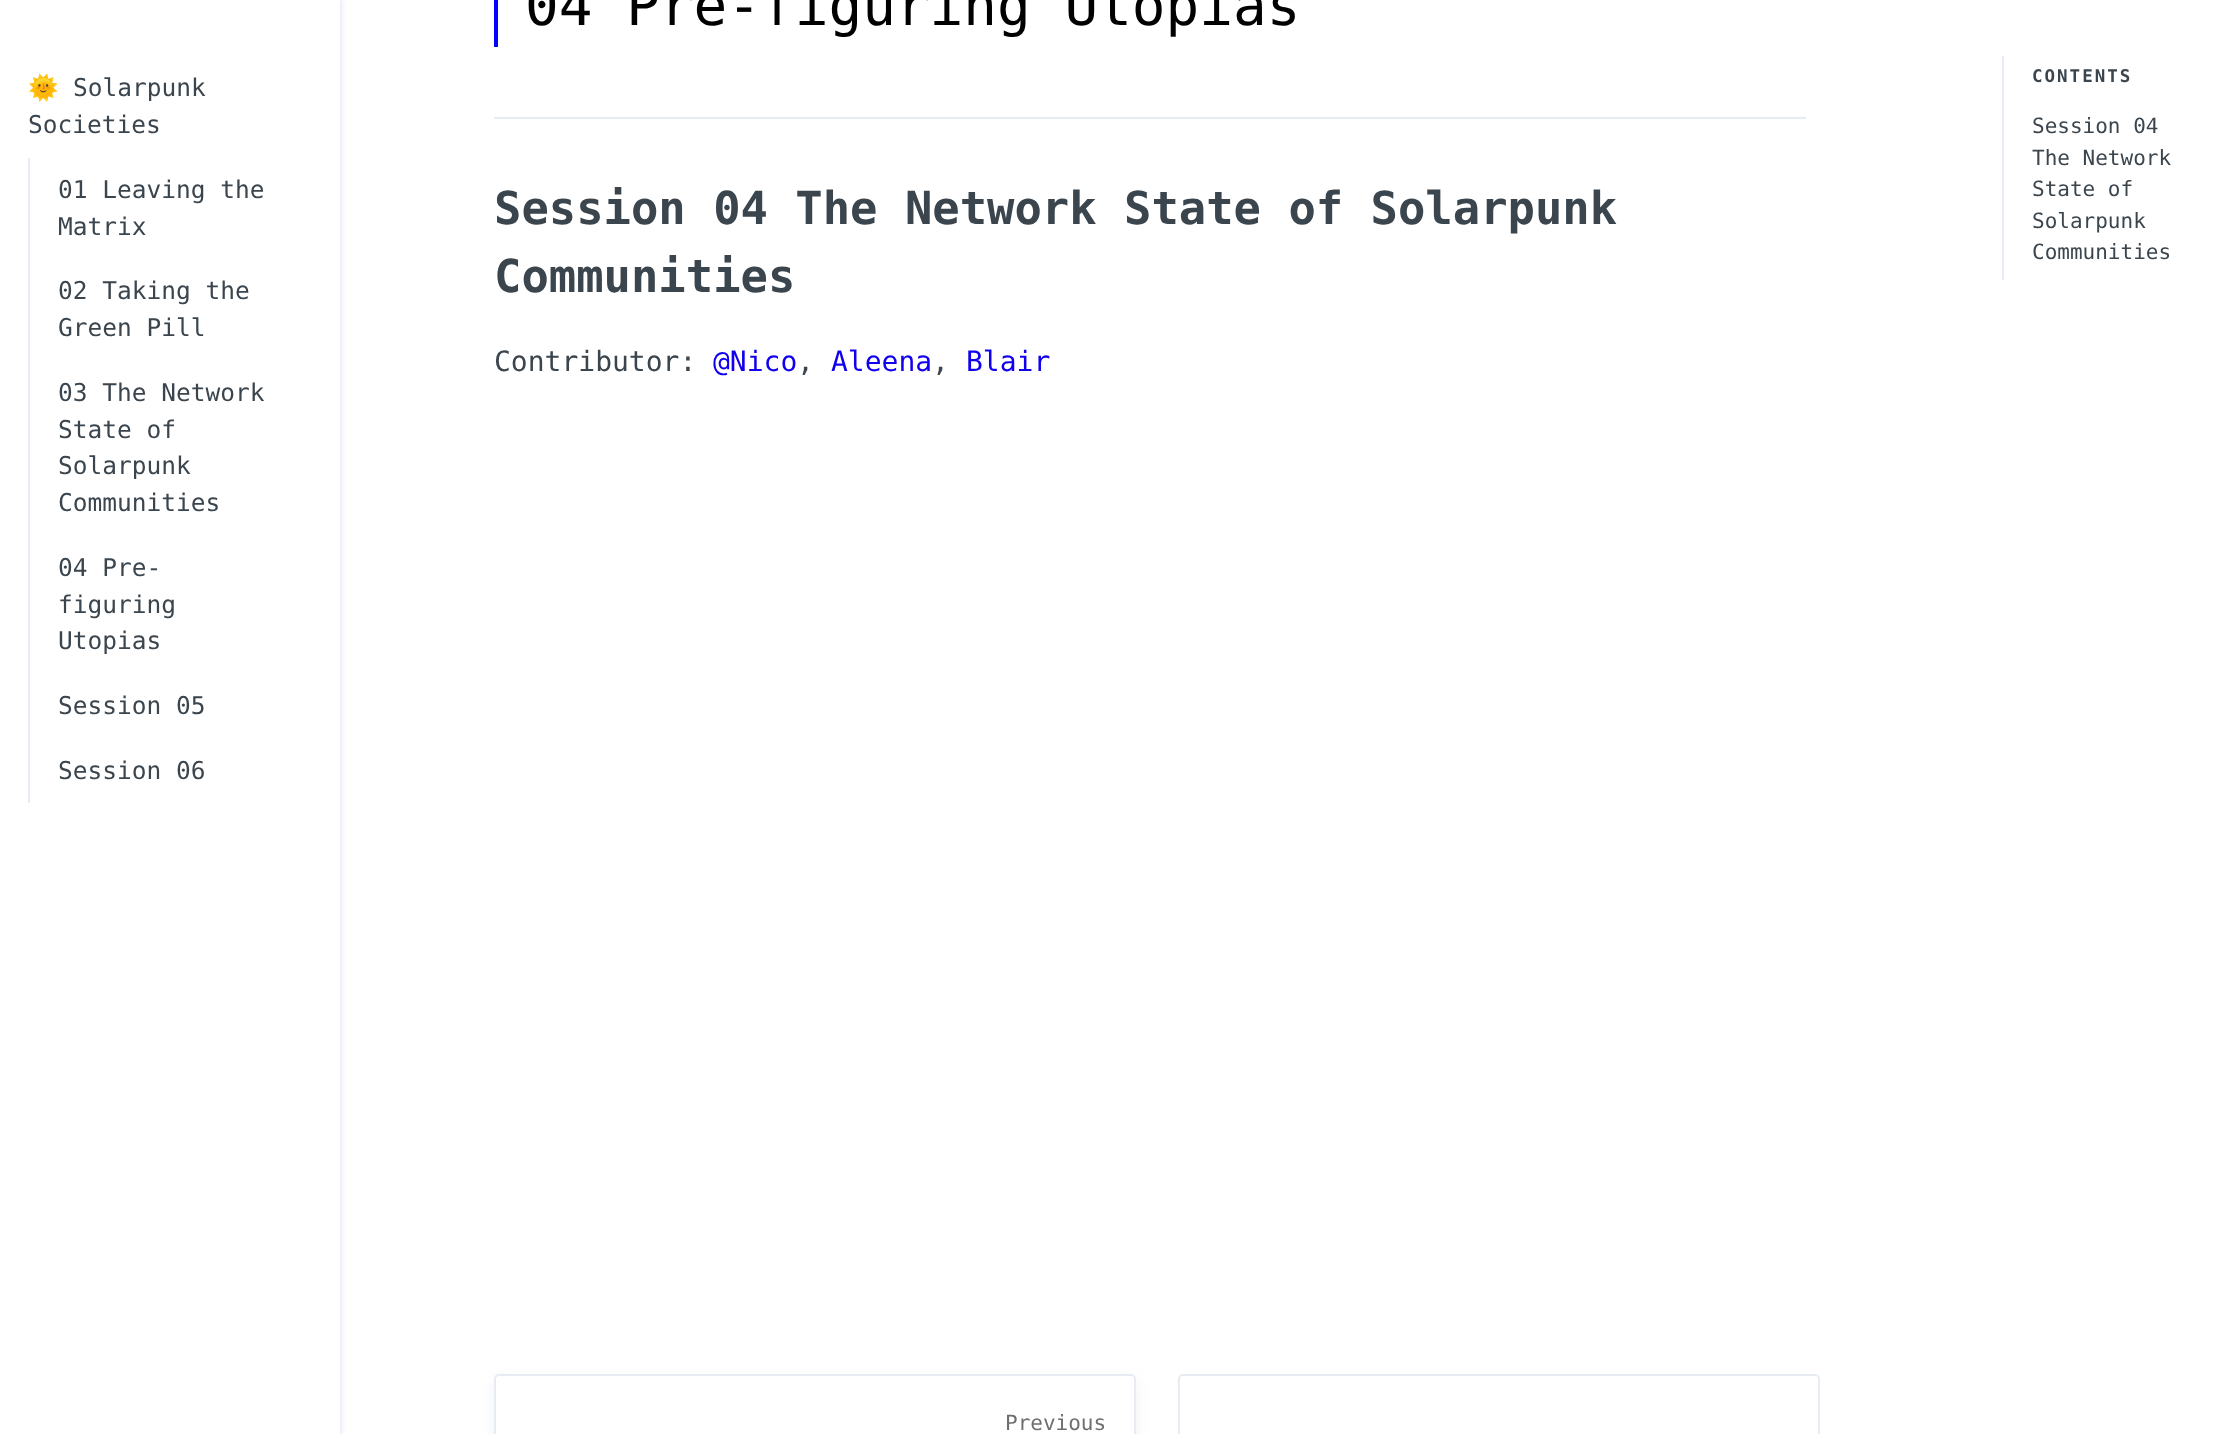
<svg xmlns="http://www.w3.org/2000/svg" width="2214" height="1434">
<defs>
<clipPath id="clip1"><path d="M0 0h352v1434h-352zm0 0h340v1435h-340z" clip-rule="evenodd"/></clipPath>
</defs>
<rect width="100%" height="100%" fill="#fff"/>
<g clip-path="url(#clip1)">
<rect x="-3" y="-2" width="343" height="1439" fill="#af9ee866" filter="blur(3.5px)"/>
</g>
<text x="28" y="96" style="font-family:Noto Color Emoji;font-size:24.5px;fill:#3b454e">🌞</text>
<text x="73" y="96" style="font-family:DejaVu Sans Mono;font-size:24.5px;fill:#3b454e">Solarpunk</text>
<text x="28" y="133" style="font-family:DejaVu Sans Mono;font-size:24.5px;fill:#3b454e">Societies</text>
<rect x="28" y="158" width="2" height="645" fill="#e6ecf1"/>
<text x="58" y="198" style="font-family:DejaVu Sans Mono;font-size:24.5px;fill:#3b454e">01 Leaving the</text>
<text x="58" y="235" style="font-family:DejaVu Sans Mono;font-size:24.5px;fill:#3b454e">Matrix</text>
<text x="58" y="299" style="font-family:DejaVu Sans Mono;font-size:24.5px;fill:#3b454e">02 Taking the</text>
<text x="58" y="336" style="font-family:DejaVu Sans Mono;font-size:24.5px;fill:#3b454e">Green Pill</text>
<text x="58" y="401" style="font-family:DejaVu Sans Mono;font-size:24.5px;fill:#3b454e">03 The Network</text>
<text x="58" y="438" style="font-family:DejaVu Sans Mono;font-size:24.5px;fill:#3b454e">State of</text>
<text x="58" y="474" style="font-family:DejaVu Sans Mono;font-size:24.5px;fill:#3b454e">Solarpunk</text>
<text x="58" y="511" style="font-family:DejaVu Sans Mono;font-size:24.5px;fill:#3b454e">Communities</text>
<text x="58" y="576" style="font-family:DejaVu Sans Mono;font-size:24.5px;fill:#3b454e">04 Pre-</text>
<text x="58" y="613" style="font-family:DejaVu Sans Mono;font-size:24.5px;fill:#3b454e">figuring</text>
<text x="58" y="649" style="font-family:DejaVu Sans Mono;font-size:24.5px;fill:#3b454e">Utopias</text>
<text x="58" y="714" style="font-family:DejaVu Sans Mono;font-size:24.5px;fill:#3b454e">Session 05</text>
<text x="58" y="779" style="font-family:DejaVu Sans Mono;font-size:24.5px;fill:#3b454e">Session 06</text>
<rect x="494" y="117" width="1312" height="2" fill="#e6ecf1"/>
<rect x="494" width="4" height="47" fill="#00f"/>
<text x="525" y="25" style="font-family:DejaVu Sans Mono;font-size:56px;fill:#000">04 Pre-figuring Utopias</text>
<text x="494" y="224" style="font-family:DejaVu Sans Mono;font-size:45.5px;font-weight:bold;fill:#3b454e">Session 04 The Network State of Solarpunk</text>
<text x="494" y="292" style="font-family:DejaVu Sans Mono;font-size:45.5px;font-weight:bold;fill:#3b454e">Communities</text>
<text x="494" y="371" style="font-family:DejaVu Sans Mono;font-size:28px;fill:#3b454e">Contributor:</text>
<text x="713" y="371" style="font-family:DejaVu Sans Mono;font-size:28px;fill:#1000ee">@Nico</text>
<text x="797" y="371" style="font-family:DejaVu Sans Mono;font-size:28px;fill:#3b454e">,</text>
<text x="831" y="371" style="font-family:DejaVu Sans Mono;font-size:28px;fill:#1000ee">Aleena</text>
<text x="932" y="371" style="font-family:DejaVu Sans Mono;font-size:28px;fill:#3b454e">,</text>
<text x="966" y="371" style="font-family:DejaVu Sans Mono;font-size:28px;fill:#1000ee">Blair</text>
<rect x="494" y="1379" width="642" height="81" rx="5" fill="#74818d1a" filter="blur(7px)"/>
<rect x="495" y="1375" width="640" height="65" rx="4" fill="#fff" stroke="#e6ecf1" stroke-width="2"/>
<text x="1005" y="1430" style="font-family:DejaVu Sans Mono;font-size:21px;fill:#6e6e6e">Previous</text>
<rect x="1179" y="1375" width="640" height="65" rx="4" fill="none" stroke="#e6ecf1" stroke-width="2"/>
<rect x="2002" y="56" width="2" height="224" fill="#e6ecf1"/>
<text x="2032" y="82" style="font-family:DejaVu Sans Mono;font-size:17.5px;font-weight:bold;letter-spacing:2px;fill:#3b454e">CONTENTS</text>
<text x="2032" y="133" style="font-family:DejaVu Sans Mono;font-size:21px;fill:#3b454e">Session 04</text>
<text x="2032" y="165" style="font-family:DejaVu Sans Mono;font-size:21px;fill:#3b454e">The Network</text>
<text x="2032" y="196" style="font-family:DejaVu Sans Mono;font-size:21px;fill:#3b454e">State of</text>
<text x="2032" y="228" style="font-family:DejaVu Sans Mono;font-size:21px;fill:#3b454e">Solarpunk</text>
<text x="2032" y="259" style="font-family:DejaVu Sans Mono;font-size:21px;fill:#3b454e">Communities</text>
</svg>
